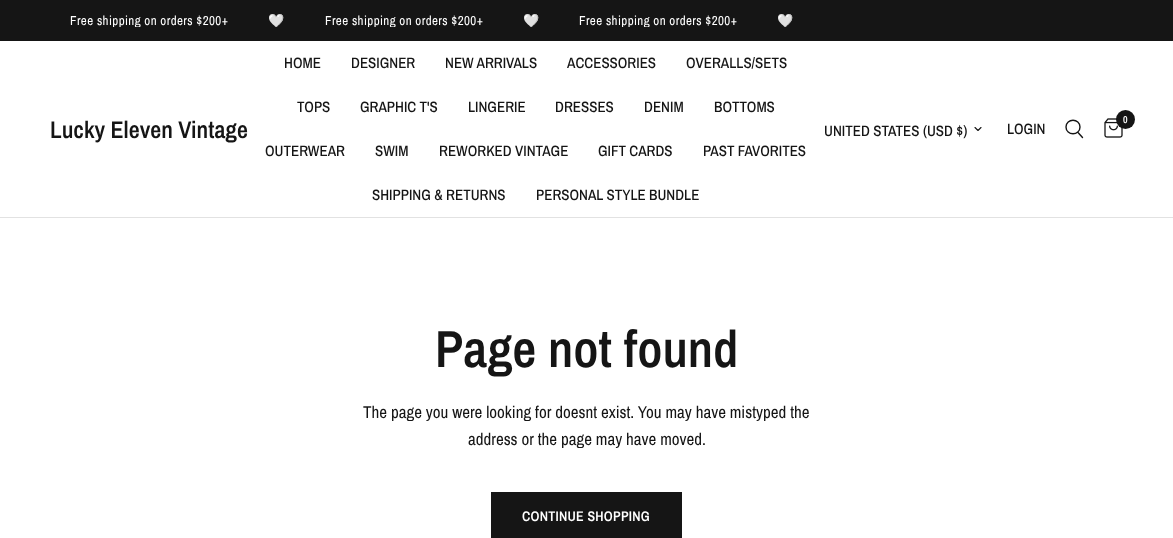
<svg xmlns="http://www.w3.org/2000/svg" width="1173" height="538">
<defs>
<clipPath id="clip1"><rect y="14" width="1173" height="13"/></clipPath>
</defs>
<rect width="100%" height="100%" fill="#fff"/>
<rect width="1173" height="41" fill="#151515"/>
<g clip-path="url(#clip1)">
<text x="70" y="25" style="font-family:Archivo Narrow;font-size:13px;letter-spacing:0.4px;fill:#fff">Free shipping on orders $200+</text>
<text x="268" y="25" style="font-family:Noto Color Emoji;font-size:13px;letter-spacing:0.4px;fill:#fff">🤍</text>
<text x="325" y="25" style="font-family:Archivo Narrow;font-size:13px;letter-spacing:0.4px;fill:#fff">Free shipping on orders $200+</text>
<text x="523" y="25" style="font-family:Noto Color Emoji;font-size:13px;letter-spacing:0.4px;fill:#fff">🤍</text>
<text x="579" y="25" style="font-family:Archivo Narrow;font-size:13px;letter-spacing:0.4px;fill:#fff">Free shipping on orders $200+</text>
<text x="777" y="25" style="font-family:Noto Color Emoji;font-size:13px;letter-spacing:0.4px;fill:#fff">🤍</text>
</g>
<rect y="217" width="1173" height="1" fill="#e2e2e2"/>
<text x="50" y="138" style="font-family:Archivo Narrow;font-size:24px;font-weight:600;fill:#151515">Lucky Eleven Vintage</text>
<text x="284" y="68" style="font-family:Archivo Narrow;font-size:15px;font-weight:500;fill:#151515">HOME</text>
<text x="351" y="68" style="font-family:Archivo Narrow;font-size:15px;font-weight:500;fill:#151515">DESIGNER</text>
<text x="445" y="68" style="font-family:Archivo Narrow;font-size:15px;font-weight:500;fill:#151515">NEW ARRIVALS</text>
<text x="567" y="68" style="font-family:Archivo Narrow;font-size:15px;font-weight:500;fill:#151515">ACCESSORIES</text>
<text x="686" y="68" style="font-family:Archivo Narrow;font-size:15px;font-weight:500;fill:#151515">OVERALLS/SETS</text>
<text x="297" y="112" style="font-family:Archivo Narrow;font-size:15px;font-weight:500;fill:#151515">TOPS</text>
<text x="360" y="112" style="font-family:Archivo Narrow;font-size:15px;font-weight:500;fill:#151515">GRAPHIC T'S</text>
<text x="468" y="112" style="font-family:Archivo Narrow;font-size:15px;font-weight:500;fill:#151515">LINGERIE</text>
<text x="555" y="112" style="font-family:Archivo Narrow;font-size:15px;font-weight:500;fill:#151515">DRESSES</text>
<text x="644" y="112" style="font-family:Archivo Narrow;font-size:15px;font-weight:500;fill:#151515">DENIM</text>
<text x="714" y="112" style="font-family:Archivo Narrow;font-size:15px;font-weight:500;fill:#151515">BOTTOMS</text>
<text x="265" y="156" style="font-family:Archivo Narrow;font-size:15px;font-weight:500;fill:#151515">OUTERWEAR</text>
<text x="375" y="156" style="font-family:Archivo Narrow;font-size:15px;font-weight:500;fill:#151515">SWIM</text>
<text x="439" y="156" style="font-family:Archivo Narrow;font-size:15px;font-weight:500;fill:#151515">REWORKED VINTAGE</text>
<text x="598" y="156" style="font-family:Archivo Narrow;font-size:15px;font-weight:500;fill:#151515">GIFT CARDS</text>
<text x="703" y="156" style="font-family:Archivo Narrow;font-size:15px;font-weight:500;fill:#151515">PAST FAVORITES</text>
<text x="372" y="200" style="font-family:Archivo Narrow;font-size:15px;font-weight:500;fill:#151515">SHIPPING &amp; RETURNS</text>
<text x="536" y="200" style="font-family:Archivo Narrow;font-size:15px;font-weight:500;fill:#151515">PERSONAL STYLE BUNDLE</text>
<text x="824" y="136" style="font-family:Archivo Narrow;font-size:15px;font-weight:500;fill:#151515">UNITED STATES (USD $)</text>
<path d="M981 127.5l-3 3l-3-3" fill="none" stroke="#151515" stroke-width="1.1" stroke-linecap="round" stroke-linejoin="round"/>
<text x="1007" y="134" style="font-family:Archivo Narrow;font-size:15px;font-weight:500;fill:#151515">LOGIN</text>
<path d="M1078 132.5l4.5 5m-2.5-10.5c0 9-14 9-14 0c0-9 14-9 14 0z" fill="none" stroke="#151515" stroke-width="1.4" stroke-linecap="round" stroke-linejoin="round"/>
<image x="1104" y="118" width="19" height="20" href="media/1.png"/>
<circle cx="1125.5" cy="119.5" r="9.5" fill="#151515"/>
<text x="1123" y="123" style="font-family:Archivo Narrow;font-size:10px;font-weight:600;fill:#fff">0</text>
<text x="435" y="367" style="font-family:Archivo Narrow;font-size:52px;font-weight:600;fill:#151515">Page not found</text>
<text x="363" y="418" style="font-family:Archivo Narrow;font-size:17px;fill:#151515">The page you were looking for doesnt exist. You may have mistyped the</text>
<text x="468" y="445" style="font-family:Archivo Narrow;font-size:17px;fill:#151515">address or the page may have moved.</text>
<rect x="491" y="492" width="191" height="46" fill="#151515"/>
<text x="522" y="521" style="font-family:Archivo Narrow;font-size:14px;font-weight:600;letter-spacing:0.25px;fill:#fff">CONTINUE SHOPPING</text>
</svg>
